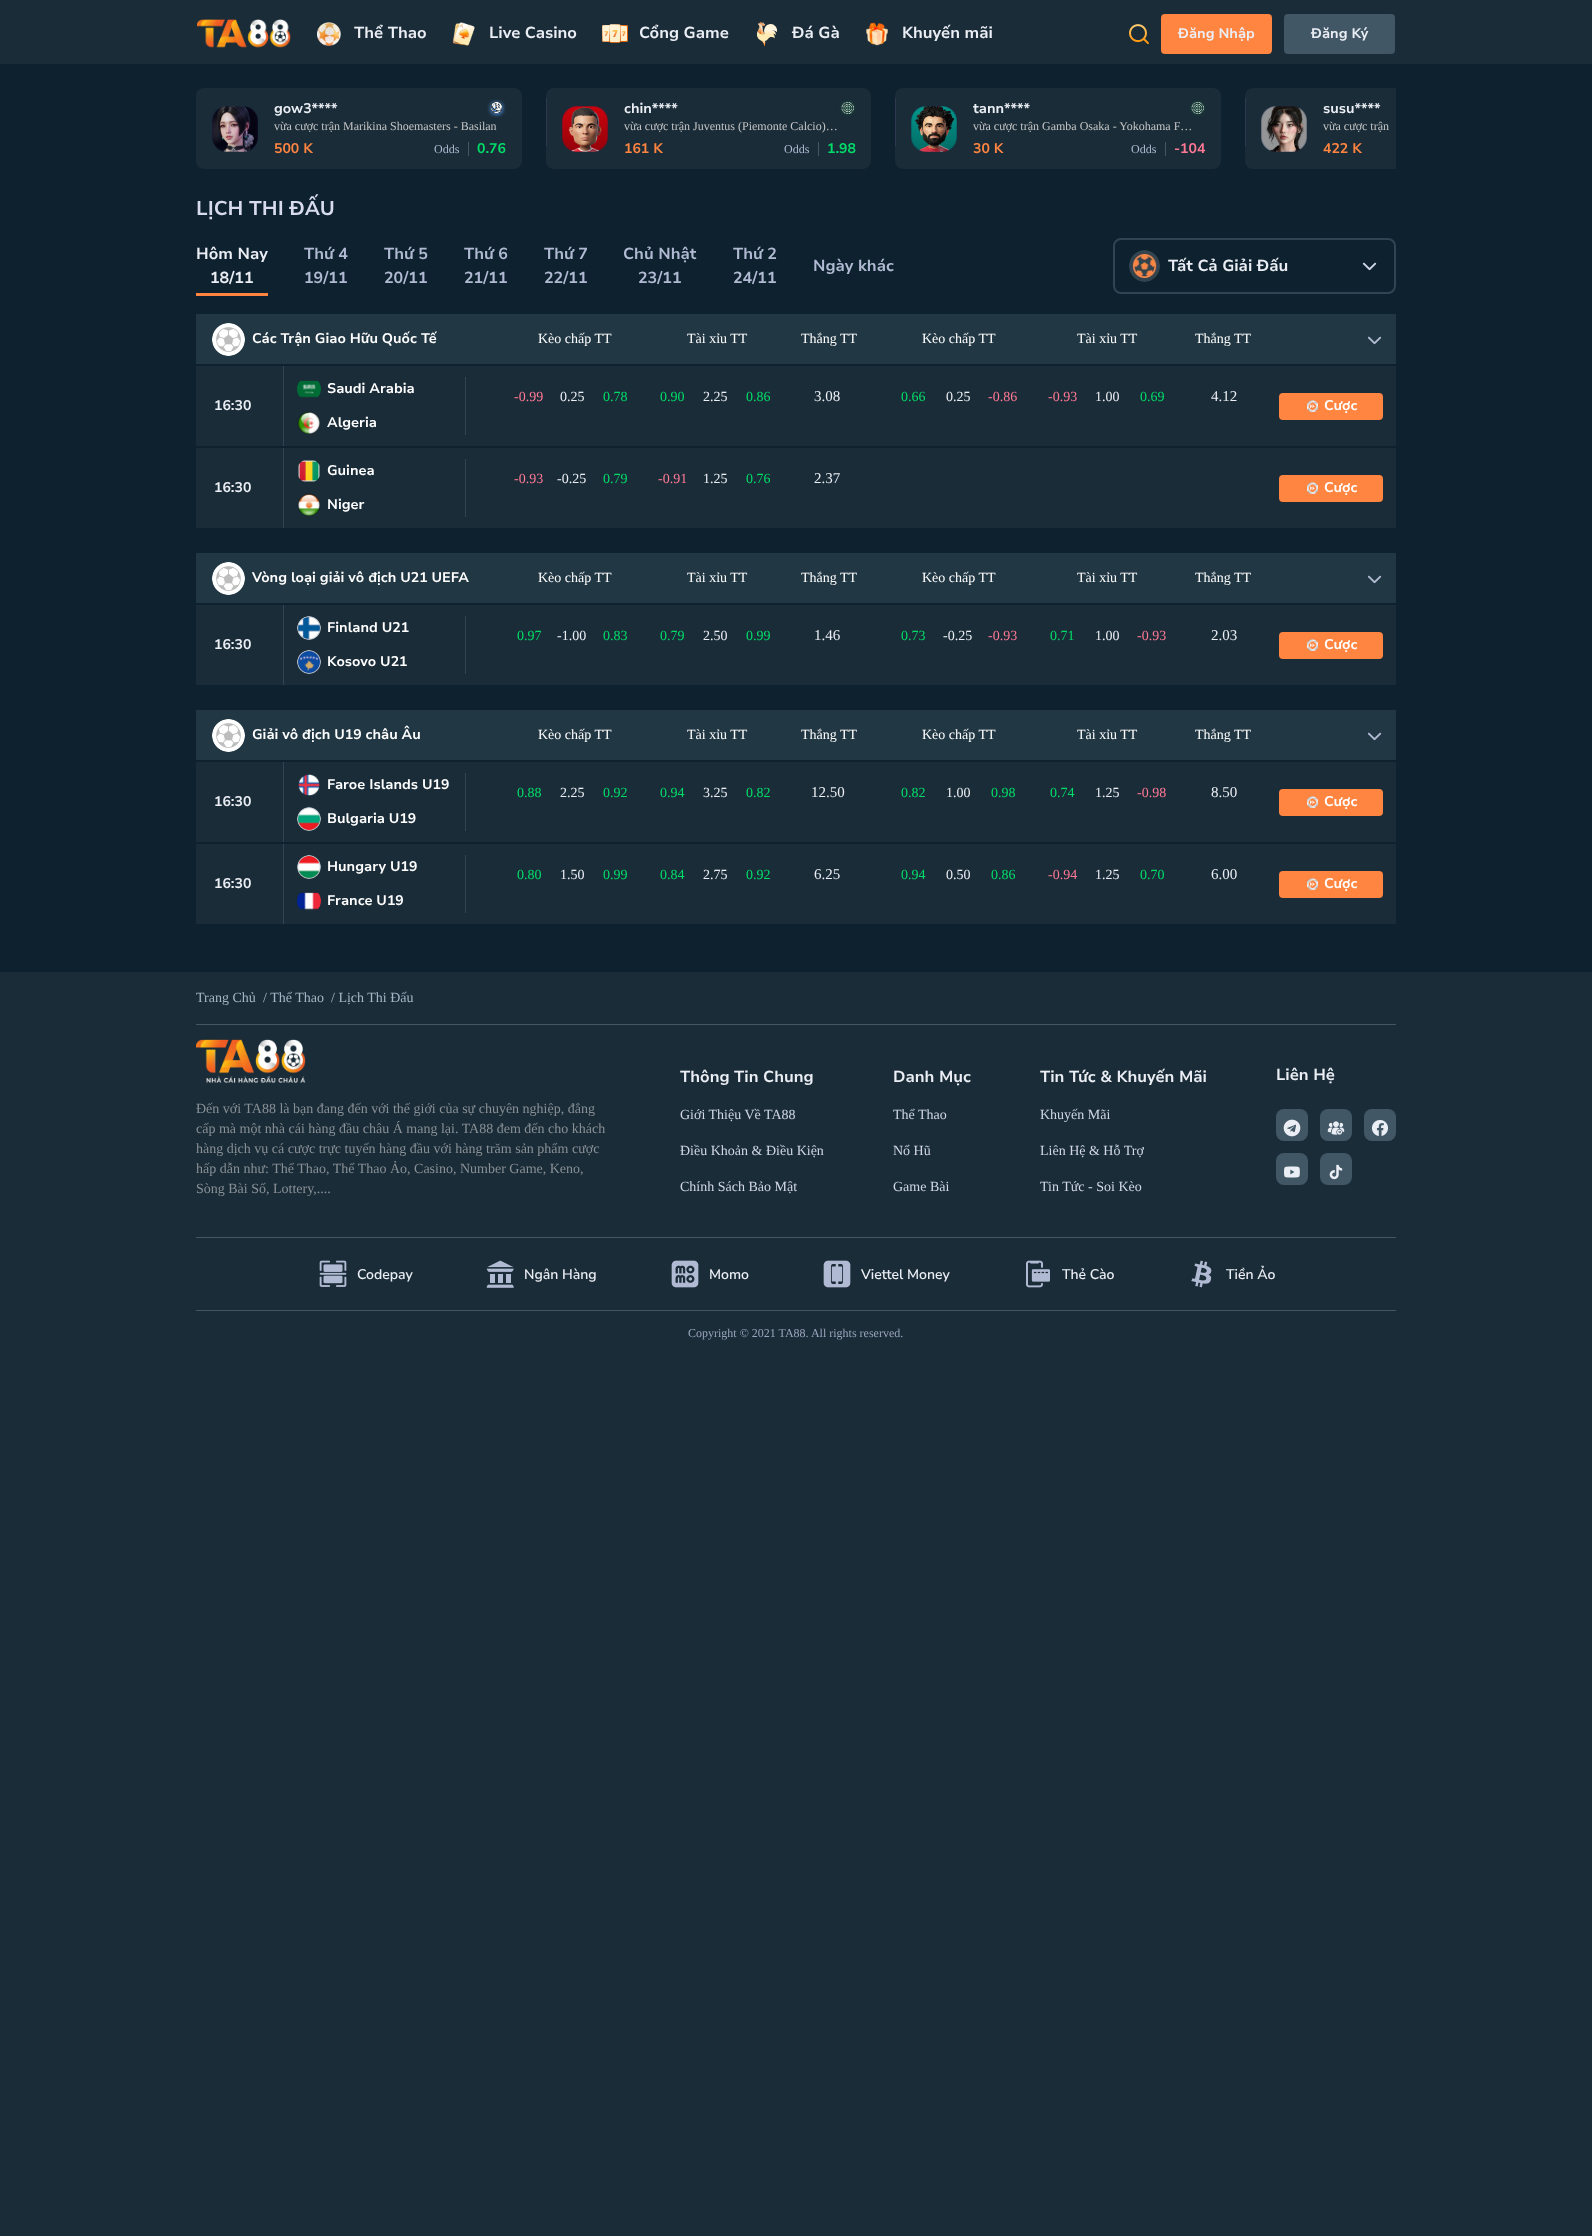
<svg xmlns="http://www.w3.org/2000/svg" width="1592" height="2236">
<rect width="100%" height="100%" fill="#1a2c38"/>
<image x="197" y="19" width="94" height="29" href="media/1.png"/>
<image x="317" y="22" width="24" height="24" href="media/2.png"/>
<text x="354" y="38" style="font-family:Nunito Sans;font-size:16px;font-weight:bold;fill:#ebeef4">Thể Thao</text>
<image x="452" y="22" width="23" height="24" href="media/3.png"/>
<text x="489" y="38" style="font-family:Nunito Sans;font-size:16px;font-weight:bold;fill:#ebeef4">Live Casino</text>
<image x="602" y="24" width="26" height="19" href="media/4.png"/>
<text x="639" y="38" style="font-family:Nunito Sans;font-size:16px;font-weight:bold;fill:#ebeef4">Cổng Game</text>
<image x="757" y="22" width="20" height="25" href="media/5.png"/>
<text x="792" y="38" style="font-family:Nunito Sans;font-size:16px;font-weight:bold;fill:#ebeef4">Đá Gà</text>
<image x="866" y="22" width="22" height="24" href="media/6.png"/>
<text x="902" y="38" style="font-family:Nunito Sans;font-size:16px;font-weight:bold;fill:#ebeef4">Khuyến mãi</text>
<image x="1129" y="24" width="20" height="21" href="media/7.png"/>
<rect x="1161" y="14" width="111" height="40" rx="4" fill="#ff8541"/>
<text x="1178" y="38" style="font-family:Nunito Sans;font-size:14px;font-weight:bold;fill:#ebeef4">Đăng Nhập</text>
<rect x="1284" y="14" width="111" height="40" rx="4" fill="#415766"/>
<text x="1311" y="38" style="font-family:Nunito Sans;font-size:14px;font-weight:bold;fill:#ebeef4">Đăng Ký</text>
<rect y="64" width="1592" height="908" fill="#0e212e"/>
<rect x="196" y="88" width="326" height="81" rx="8" fill="#1a2c38"/>
<image x="212" y="106" width="46" height="46" href="media/8.png"/>
<text x="274" y="113" style="font-family:Nunito Sans;font-size:14px;font-weight:bold;fill:#ebeef4">gow3****</text>
<image x="487" y="99" width="19" height="19" href="media/9.png"/>
<text x="274" y="130" style="font-family:Liberation Serif;font-size:12px;fill:#c5c5c5">vừa cược trận Marikina Shoemasters - Basilan</text>
<text x="274" y="153" style="font-family:Nunito Sans;font-size:14px;font-weight:bold;fill:#ff8541">500 K</text>
<text x="434" y="153" style="font-family:Liberation Serif;font-size:12px;fill:#b1bad3">Odds</text>
<rect x="468" y="142" width="1" height="14" fill="#415766"/>
<text x="477" y="153" style="font-family:Nunito Sans;font-size:14px;font-weight:bold;fill:#01dc69">0.76</text>
<rect x="546" y="88" width="325" height="81" rx="8" fill="#1a2c38"/>
<rect x="546" y="98" width="1" height="48" fill="#2f384f"/>
<image x="562" y="106" width="46" height="46" href="media/10.png"/>
<text x="624" y="113" style="font-family:Nunito Sans;font-size:14px;font-weight:bold;fill:#ebeef4">chin****</text>
<image x="839" y="100" width="17" height="16" href="media/11.png"/>
<text x="624" y="130" style="font-family:Liberation Serif;font-size:12px;fill:#c5c5c5">vừa cược trận Juventus (Piemonte Calcio)…</text>
<text x="624" y="153" style="font-family:Nunito Sans;font-size:14px;font-weight:bold;fill:#ff8541">161 K</text>
<text x="784" y="153" style="font-family:Liberation Serif;font-size:12px;fill:#b1bad3">Odds</text>
<rect x="818" y="142" width="1" height="14" fill="#415766"/>
<text x="827" y="153" style="font-family:Nunito Sans;font-size:14px;font-weight:bold;fill:#01dc69">1.98</text>
<rect x="895" y="88" width="326" height="81" rx="8" fill="#1a2c38"/>
<rect x="895" y="98" width="1" height="48" fill="#2f384f"/>
<image x="911" y="106" width="46" height="46" href="media/12.png"/>
<text x="973" y="113" style="font-family:Nunito Sans;font-size:14px;font-weight:bold;fill:#ebeef4">tann****</text>
<image x="1189" y="100" width="17" height="16" href="media/11.png"/>
<text x="973" y="130" style="font-family:Liberation Serif;font-size:12px;fill:#c5c5c5">vừa cược trận Gamba Osaka - Yokohama F…</text>
<text x="973" y="153" style="font-family:Nunito Sans;font-size:14px;font-weight:bold;fill:#ff8541">30 K</text>
<text x="1131" y="153" style="font-family:Liberation Serif;font-size:12px;fill:#b1bad3">Odds</text>
<rect x="1165" y="142" width="1" height="14" fill="#415766"/>
<text x="1174" y="153" style="font-family:Nunito Sans;font-size:14px;font-weight:bold;fill:#ff7894">-104</text>
<path d="M1253 88h143v81h-143c-4.5 0-8-3.5-8-8v-65c0-4.5 3.5-8 8-8z" fill="#1a2c38"/>
<rect x="1245" y="98" width="1" height="48" fill="#2f384f"/>
<image x="1261" y="106" width="46" height="46" href="media/13.png"/>
<text x="1323" y="113" style="font-family:Nunito Sans;font-size:14px;font-weight:bold;fill:#ebeef4">susu****</text>
<text x="1323" y="130" style="font-family:Liberation Serif;font-size:12px;fill:#c5c5c5">vừa cược trận</text>
<text x="1323" y="153" style="font-family:Nunito Sans;font-size:14px;font-weight:bold;fill:#ff8541">422 K</text>
<text x="196" y="215" style="font-family:Nunito Sans;font-size:20px;font-weight:bold;fill:#d7dbec">LỊCH THI ĐẤU</text>
<text x="196" y="259" style="font-family:Nunito Sans;font-size:16px;font-weight:bold;fill:#ebeef4">Hôm Nay</text>
<text x="210" y="283" style="font-family:Nunito Sans;font-size:16px;font-weight:bold;fill:#ebeef4">18/11</text>
<rect x="196" y="293" width="72" height="3" fill="#ff8541"/>
<text x="304" y="259" style="font-family:Nunito Sans;font-size:16px;font-weight:bold;fill:#b1bad3">Thứ 4</text>
<text x="304" y="283" style="font-family:Nunito Sans;font-size:16px;font-weight:bold;fill:#b1bad3">19/11</text>
<text x="384" y="259" style="font-family:Nunito Sans;font-size:16px;font-weight:bold;fill:#b1bad3">Thứ 5</text>
<text x="384" y="283" style="font-family:Nunito Sans;font-size:16px;font-weight:bold;fill:#b1bad3">20/11</text>
<text x="464" y="259" style="font-family:Nunito Sans;font-size:16px;font-weight:bold;fill:#b1bad3">Thứ 6</text>
<text x="464" y="283" style="font-family:Nunito Sans;font-size:16px;font-weight:bold;fill:#b1bad3">21/11</text>
<text x="544" y="259" style="font-family:Nunito Sans;font-size:16px;font-weight:bold;fill:#b1bad3">Thứ 7</text>
<text x="544" y="283" style="font-family:Nunito Sans;font-size:16px;font-weight:bold;fill:#b1bad3">22/11</text>
<text x="623" y="259" style="font-family:Nunito Sans;font-size:16px;font-weight:bold;fill:#b1bad3">Chủ Nhật</text>
<text x="638" y="283" style="font-family:Nunito Sans;font-size:16px;font-weight:bold;fill:#b1bad3">23/11</text>
<text x="733" y="259" style="font-family:Nunito Sans;font-size:16px;font-weight:bold;fill:#b1bad3">Thứ 2</text>
<text x="733" y="283" style="font-family:Nunito Sans;font-size:16px;font-weight:bold;fill:#b1bad3">24/11</text>
<text x="813" y="271" style="font-family:Nunito Sans;font-size:16px;font-weight:bold;fill:#b1bad3">Ngày khác</text>
<rect x="1114" y="239" width="281" height="54" rx="7" fill="none" stroke="#304553" stroke-width="2"/>
<image x="1129" y="250" width="31" height="32" href="media/14.png"/>
<text x="1168" y="271" style="font-family:Nunito Sans;font-size:16px;font-weight:bold;fill:#ebeef4">Tất Cả Giải Đấu</text>
<image x="1362" y="262" width="15" height="9" href="media/15.png"/>
<rect x="196" y="314" width="1200" height="50" fill="#213743"/>
<image x="212" y="323" width="33" height="33" href="media/16.png"/>
<text x="252" y="343" style="font-family:Nunito Sans;font-size:14px;font-weight:bold;fill:#fff">Các Trận Giao Hữu Quốc Tế</text>
<text x="538" y="343" style="font-family:Liberation Serif;font-size:14px;fill:#fff">Kèo chấp TT</text>
<text x="687" y="343" style="font-family:Liberation Serif;font-size:14px;fill:#fff">Tài xỉu TT</text>
<text x="801" y="343" style="font-family:Liberation Serif;font-size:14px;fill:#fff">Thắng TT</text>
<text x="922" y="343" style="font-family:Liberation Serif;font-size:14px;fill:#fff">Kèo chấp TT</text>
<text x="1077" y="343" style="font-family:Liberation Serif;font-size:14px;fill:#fff">Tài xỉu TT</text>
<text x="1195" y="343" style="font-family:Liberation Serif;font-size:14px;fill:#fff">Thắng TT</text>
<image x="1367" y="336" width="15" height="9" href="media/17.png"/>
<rect x="196" y="366" width="1200" height="80" fill="#1a2c38"/>
<rect x="283" y="366" width="1" height="80" fill="#304553"/>
<text x="214" y="410" style="font-family:Nunito Sans;font-size:14px;font-weight:bold;fill:#ebeef4">16:30</text>
<rect x="465" y="377" width="1" height="58" fill="#304553"/>
<image x="297" y="380" width="24" height="18" href="media/18.png"/>
<text x="327" y="393" style="font-family:Nunito Sans;font-size:14px;font-weight:bold;fill:#fff">Saudi Arabia</text>
<image x="297" y="411" width="23" height="24" href="media/19.png"/>
<text x="327" y="427" style="font-family:Nunito Sans;font-size:14px;font-weight:bold;fill:#fff">Algeria</text>
<text x="514" y="401" style="font-family:Liberation Serif;font-size:14px;fill:#ff7894">-0.99</text>
<text x="560" y="401" style="font-family:Liberation Serif;font-size:14px;fill:#ebeef4">0.25</text>
<text x="603" y="401" style="font-family:Liberation Serif;font-size:14px;fill:#01dc69">0.78</text>
<text x="660" y="401" style="font-family:Liberation Serif;font-size:14px;fill:#01dc69">0.90</text>
<text x="703" y="401" style="font-family:Liberation Serif;font-size:14px;fill:#ebeef4">2.25</text>
<text x="746" y="401" style="font-family:Liberation Serif;font-size:14px;fill:#01dc69">0.86</text>
<text x="814" y="401" style="font-family:Liberation Serif;font-size:15px;fill:#ebeef4">3.08</text>
<text x="901" y="401" style="font-family:Liberation Serif;font-size:14px;fill:#01dc69">0.66</text>
<text x="946" y="401" style="font-family:Liberation Serif;font-size:14px;fill:#ebeef4">0.25</text>
<text x="988" y="401" style="font-family:Liberation Serif;font-size:14px;fill:#ff7894">-0.86</text>
<text x="1048" y="401" style="font-family:Liberation Serif;font-size:14px;fill:#ff7894">-0.93</text>
<text x="1095" y="401" style="font-family:Liberation Serif;font-size:14px;fill:#ebeef4">1.00</text>
<text x="1140" y="401" style="font-family:Liberation Serif;font-size:14px;fill:#01dc69">0.69</text>
<text x="1211" y="401" style="font-family:Liberation Serif;font-size:15px;fill:#ebeef4">4.12</text>
<rect x="1279" y="393" width="104" height="27" rx="4" fill="#ff8541"/>
<image x="1307" y="400" width="11" height="12" href="media/20.png"/>
<text x="1324" y="410" style="font-family:Nunito Sans;font-size:14px;font-weight:bold;fill:#fff">Cược</text>
<rect x="196" y="448" width="1200" height="80" fill="#1a2c38"/>
<rect x="283" y="448" width="1" height="80" fill="#304553"/>
<text x="214" y="492" style="font-family:Nunito Sans;font-size:14px;font-weight:bold;fill:#ebeef4">16:30</text>
<rect x="465" y="459" width="1" height="58" fill="#304553"/>
<image x="298" y="460" width="22" height="22" href="media/21.png"/>
<text x="327" y="475" style="font-family:Nunito Sans;font-size:14px;font-weight:bold;fill:#fff">Guinea</text>
<image x="297" y="493" width="23" height="24" href="media/22.png"/>
<text x="327" y="509" style="font-family:Nunito Sans;font-size:14px;font-weight:bold;fill:#fff">Niger</text>
<text x="514" y="483" style="font-family:Liberation Serif;font-size:14px;fill:#ff7894">-0.93</text>
<text x="557" y="483" style="font-family:Liberation Serif;font-size:14px;fill:#ebeef4">-0.25</text>
<text x="603" y="483" style="font-family:Liberation Serif;font-size:14px;fill:#01dc69">0.79</text>
<text x="658" y="483" style="font-family:Liberation Serif;font-size:14px;fill:#ff7894">-0.91</text>
<text x="703" y="483" style="font-family:Liberation Serif;font-size:14px;fill:#ebeef4">1.25</text>
<text x="746" y="483" style="font-family:Liberation Serif;font-size:14px;fill:#01dc69">0.76</text>
<text x="814" y="483" style="font-family:Liberation Serif;font-size:15px;fill:#ebeef4">2.37</text>
<rect x="1279" y="475" width="104" height="27" rx="4" fill="#ff8541"/>
<image x="1307" y="482" width="11" height="12" href="media/20.png"/>
<text x="1324" y="492" style="font-family:Nunito Sans;font-size:14px;font-weight:bold;fill:#fff">Cược</text>
<rect x="196" y="553" width="1200" height="50" fill="#213743"/>
<image x="212" y="562" width="33" height="33" href="media/16.png"/>
<text x="252" y="582" style="font-family:Nunito Sans;font-size:14px;font-weight:bold;fill:#fff">Vòng loại giải vô địch U21 UEFA</text>
<text x="538" y="582" style="font-family:Liberation Serif;font-size:14px;fill:#fff">Kèo chấp TT</text>
<text x="687" y="582" style="font-family:Liberation Serif;font-size:14px;fill:#fff">Tài xỉu TT</text>
<text x="801" y="582" style="font-family:Liberation Serif;font-size:14px;fill:#fff">Thắng TT</text>
<text x="922" y="582" style="font-family:Liberation Serif;font-size:14px;fill:#fff">Kèo chấp TT</text>
<text x="1077" y="582" style="font-family:Liberation Serif;font-size:14px;fill:#fff">Tài xỉu TT</text>
<text x="1195" y="582" style="font-family:Liberation Serif;font-size:14px;fill:#fff">Thắng TT</text>
<image x="1367" y="575" width="15" height="9" href="media/17.png"/>
<rect x="196" y="605" width="1200" height="80" fill="#1a2c38"/>
<rect x="283" y="605" width="1" height="80" fill="#304553"/>
<text x="214" y="649" style="font-family:Nunito Sans;font-size:14px;font-weight:bold;fill:#ebeef4">16:30</text>
<rect x="465" y="616" width="1" height="58" fill="#304553"/>
<image x="297" y="616" width="24" height="24" href="media/23.png"/>
<text x="327" y="632" style="font-family:Nunito Sans;font-size:14px;font-weight:bold;fill:#fff">Finland U21</text>
<image x="297" y="650" width="24" height="24" href="media/24.png"/>
<text x="327" y="666" style="font-family:Nunito Sans;font-size:14px;font-weight:bold;fill:#fff">Kosovo U21</text>
<text x="517" y="640" style="font-family:Liberation Serif;font-size:14px;fill:#01dc69">0.97</text>
<text x="557" y="640" style="font-family:Liberation Serif;font-size:14px;fill:#ebeef4">-1.00</text>
<text x="603" y="640" style="font-family:Liberation Serif;font-size:14px;fill:#01dc69">0.83</text>
<text x="660" y="640" style="font-family:Liberation Serif;font-size:14px;fill:#01dc69">0.79</text>
<text x="703" y="640" style="font-family:Liberation Serif;font-size:14px;fill:#ebeef4">2.50</text>
<text x="746" y="640" style="font-family:Liberation Serif;font-size:14px;fill:#01dc69">0.99</text>
<text x="814" y="640" style="font-family:Liberation Serif;font-size:15px;fill:#ebeef4">1.46</text>
<text x="901" y="640" style="font-family:Liberation Serif;font-size:14px;fill:#01dc69">0.73</text>
<text x="943" y="640" style="font-family:Liberation Serif;font-size:14px;fill:#ebeef4">-0.25</text>
<text x="988" y="640" style="font-family:Liberation Serif;font-size:14px;fill:#ff7894">-0.93</text>
<text x="1050" y="640" style="font-family:Liberation Serif;font-size:14px;fill:#01dc69">0.71</text>
<text x="1095" y="640" style="font-family:Liberation Serif;font-size:14px;fill:#ebeef4">1.00</text>
<text x="1137" y="640" style="font-family:Liberation Serif;font-size:14px;fill:#ff7894">-0.93</text>
<text x="1211" y="640" style="font-family:Liberation Serif;font-size:15px;fill:#ebeef4">2.03</text>
<rect x="1279" y="632" width="104" height="27" rx="4" fill="#ff8541"/>
<image x="1307" y="639" width="11" height="12" href="media/20.png"/>
<text x="1324" y="649" style="font-family:Nunito Sans;font-size:14px;font-weight:bold;fill:#fff">Cược</text>
<rect x="196" y="710" width="1200" height="50" fill="#213743"/>
<image x="212" y="719" width="33" height="33" href="media/16.png"/>
<text x="252" y="739" style="font-family:Nunito Sans;font-size:14px;font-weight:bold;fill:#fff">Giải vô địch U19 châu Âu</text>
<text x="538" y="739" style="font-family:Liberation Serif;font-size:14px;fill:#fff">Kèo chấp TT</text>
<text x="687" y="739" style="font-family:Liberation Serif;font-size:14px;fill:#fff">Tài xỉu TT</text>
<text x="801" y="739" style="font-family:Liberation Serif;font-size:14px;fill:#fff">Thắng TT</text>
<text x="922" y="739" style="font-family:Liberation Serif;font-size:14px;fill:#fff">Kèo chấp TT</text>
<text x="1077" y="739" style="font-family:Liberation Serif;font-size:14px;fill:#fff">Tài xỉu TT</text>
<text x="1195" y="739" style="font-family:Liberation Serif;font-size:14px;fill:#fff">Thắng TT</text>
<image x="1367" y="732" width="15" height="9" href="media/17.png"/>
<rect x="196" y="762" width="1200" height="80" fill="#1a2c38"/>
<rect x="283" y="762" width="1" height="80" fill="#304553"/>
<text x="214" y="806" style="font-family:Nunito Sans;font-size:14px;font-weight:bold;fill:#ebeef4">16:30</text>
<rect x="465" y="773" width="1" height="58" fill="#304553"/>
<image x="298" y="774" width="22" height="22" href="media/25.png"/>
<text x="327" y="789" style="font-family:Nunito Sans;font-size:14px;font-weight:bold;fill:#fff">Faroe Islands U19</text>
<image x="297" y="807" width="24" height="24" href="media/26.png"/>
<text x="327" y="823" style="font-family:Nunito Sans;font-size:14px;font-weight:bold;fill:#fff">Bulgaria U19</text>
<text x="517" y="797" style="font-family:Liberation Serif;font-size:14px;fill:#01dc69">0.88</text>
<text x="560" y="797" style="font-family:Liberation Serif;font-size:14px;fill:#ebeef4">2.25</text>
<text x="603" y="797" style="font-family:Liberation Serif;font-size:14px;fill:#01dc69">0.92</text>
<text x="660" y="797" style="font-family:Liberation Serif;font-size:14px;fill:#01dc69">0.94</text>
<text x="703" y="797" style="font-family:Liberation Serif;font-size:14px;fill:#ebeef4">3.25</text>
<text x="746" y="797" style="font-family:Liberation Serif;font-size:14px;fill:#01dc69">0.82</text>
<text x="811" y="797" style="font-family:Liberation Serif;font-size:15px;fill:#ebeef4">12.50</text>
<text x="901" y="797" style="font-family:Liberation Serif;font-size:14px;fill:#01dc69">0.82</text>
<text x="946" y="797" style="font-family:Liberation Serif;font-size:14px;fill:#ebeef4">1.00</text>
<text x="991" y="797" style="font-family:Liberation Serif;font-size:14px;fill:#01dc69">0.98</text>
<text x="1050" y="797" style="font-family:Liberation Serif;font-size:14px;fill:#01dc69">0.74</text>
<text x="1095" y="797" style="font-family:Liberation Serif;font-size:14px;fill:#ebeef4">1.25</text>
<text x="1137" y="797" style="font-family:Liberation Serif;font-size:14px;fill:#ff7894">-0.98</text>
<text x="1211" y="797" style="font-family:Liberation Serif;font-size:15px;fill:#ebeef4">8.50</text>
<rect x="1279" y="789" width="104" height="27" rx="4" fill="#ff8541"/>
<image x="1307" y="796" width="11" height="12" href="media/20.png"/>
<text x="1324" y="806" style="font-family:Nunito Sans;font-size:14px;font-weight:bold;fill:#fff">Cược</text>
<rect x="196" y="844" width="1200" height="80" fill="#1a2c38"/>
<rect x="283" y="844" width="1" height="80" fill="#304553"/>
<text x="214" y="888" style="font-family:Nunito Sans;font-size:14px;font-weight:bold;fill:#ebeef4">16:30</text>
<rect x="465" y="855" width="1" height="58" fill="#304553"/>
<image x="297" y="855" width="24" height="24" href="media/27.png"/>
<text x="327" y="871" style="font-family:Nunito Sans;font-size:14px;font-weight:bold;fill:#fff">Hungary U19</text>
<image x="297" y="892" width="24" height="18" href="media/28.png"/>
<text x="327" y="905" style="font-family:Nunito Sans;font-size:14px;font-weight:bold;fill:#fff">France U19</text>
<text x="517" y="879" style="font-family:Liberation Serif;font-size:14px;fill:#01dc69">0.80</text>
<text x="560" y="879" style="font-family:Liberation Serif;font-size:14px;fill:#ebeef4">1.50</text>
<text x="603" y="879" style="font-family:Liberation Serif;font-size:14px;fill:#01dc69">0.99</text>
<text x="660" y="879" style="font-family:Liberation Serif;font-size:14px;fill:#01dc69">0.84</text>
<text x="703" y="879" style="font-family:Liberation Serif;font-size:14px;fill:#ebeef4">2.75</text>
<text x="746" y="879" style="font-family:Liberation Serif;font-size:14px;fill:#01dc69">0.92</text>
<text x="814" y="879" style="font-family:Liberation Serif;font-size:15px;fill:#ebeef4">6.25</text>
<text x="901" y="879" style="font-family:Liberation Serif;font-size:14px;fill:#01dc69">0.94</text>
<text x="946" y="879" style="font-family:Liberation Serif;font-size:14px;fill:#ebeef4">0.50</text>
<text x="991" y="879" style="font-family:Liberation Serif;font-size:14px;fill:#01dc69">0.86</text>
<text x="1048" y="879" style="font-family:Liberation Serif;font-size:14px;fill:#ff7894">-0.94</text>
<text x="1095" y="879" style="font-family:Liberation Serif;font-size:14px;fill:#ebeef4">1.25</text>
<text x="1140" y="879" style="font-family:Liberation Serif;font-size:14px;fill:#01dc69">0.70</text>
<text x="1211" y="879" style="font-family:Liberation Serif;font-size:15px;fill:#ebeef4">6.00</text>
<rect x="1279" y="871" width="104" height="27" rx="4" fill="#ff8541"/>
<image x="1307" y="878" width="11" height="12" href="media/20.png"/>
<text x="1324" y="888" style="font-family:Nunito Sans;font-size:14px;font-weight:bold;fill:#fff">Cược</text>
<rect x="196" y="1024" width="1200" height="1" fill="#415766"/>
<text x="196" y="1002" style="font-family:Liberation Serif;font-size:14px;fill:#a5b7c5">Trang Chủ</text>
<text x="263" y="1002" style="font-family:Liberation Serif;font-size:14px;fill:#a5b7c5">/ Thể Thao</text>
<text x="331" y="1002" style="font-family:Liberation Serif;font-size:14px;fill:#a5b7c5">/ Lịch Thi Đấu</text>
<image x="196" y="1039" width="110" height="44" href="media/29.png"/>
<text x="196" y="1113" style="font-family:Liberation Serif;font-size:14px;fill:#899096">Đến với TA88 là bạn đang đến với thế giới của sự chuyên nghiệp, đẳng</text>
<text x="196" y="1133" style="font-family:Liberation Serif;font-size:14px;fill:#899096">cấp mà một nhà cái hàng đầu châu Á mang lại. TA88 đem đến cho khách</text>
<text x="196" y="1153" style="font-family:Liberation Serif;font-size:14px;fill:#899096">hàng dịch vụ cá cược trực tuyến hàng đầu với hàng trăm sản phẩm cược</text>
<text x="196" y="1173" style="font-family:Liberation Serif;font-size:14px;fill:#899096">hấp dẫn như: Thể Thao, Thể Thao Ảo, Casino, Number Game, Keno,</text>
<text x="196" y="1193" style="font-family:Liberation Serif;font-size:14px;fill:#899096">Sòng Bài Số, Lottery,....</text>
<text x="680" y="1082" style="font-family:Nunito Sans;font-size:16px;font-weight:bold;fill:#ebeef4">Thông Tin Chung</text>
<text x="680" y="1119" style="font-family:Liberation Serif;font-size:14px;fill:#d1d7e5">Giới Thiệu Về TA88</text>
<text x="680" y="1155" style="font-family:Liberation Serif;font-size:14px;fill:#d1d7e5">Điều Khoản &amp; Điều Kiện</text>
<text x="680" y="1191" style="font-family:Liberation Serif;font-size:14px;fill:#d1d7e5">Chính Sách Bảo Mật</text>
<text x="893" y="1082" style="font-family:Nunito Sans;font-size:16px;font-weight:bold;fill:#ebeef4">Danh Mục</text>
<text x="893" y="1119" style="font-family:Liberation Serif;font-size:14px;fill:#d1d7e5">Thể Thao</text>
<text x="893" y="1155" style="font-family:Liberation Serif;font-size:14px;fill:#d1d7e5">Nổ Hũ</text>
<text x="893" y="1191" style="font-family:Liberation Serif;font-size:14px;fill:#d1d7e5">Game Bài</text>
<text x="1040" y="1082" style="font-family:Nunito Sans;font-size:16px;font-weight:bold;fill:#ebeef4">Tin Tức &amp; Khuyến Mãi</text>
<text x="1040" y="1119" style="font-family:Liberation Serif;font-size:14px;fill:#d1d7e5">Khuyến Mãi</text>
<text x="1040" y="1155" style="font-family:Liberation Serif;font-size:14px;fill:#d1d7e5">Liên Hệ &amp; Hỗ Trợ</text>
<text x="1040" y="1191" style="font-family:Liberation Serif;font-size:14px;fill:#d1d7e5">Tin Tức - Soi Kèo</text>
<text x="1276" y="1080" style="font-family:Nunito Sans;font-size:16px;font-weight:bold;fill:#ebeef4">Liên Hệ</text>
<rect x="1276" y="1109" width="32" height="32" rx="8" fill="#415766"/>
<image x="1283" y="1119" width="18" height="18" href="media/30.png"/>
<rect x="1320" y="1109" width="32" height="32" rx="8" fill="#415766"/>
<image x="1327" y="1121" width="18" height="14" href="media/31.png"/>
<rect x="1364" y="1109" width="32" height="32" rx="8" fill="#415766"/>
<image x="1371" y="1119" width="17" height="17" href="media/32.png"/>
<rect x="1276" y="1153" width="32" height="32" rx="8" fill="#415766"/>
<image x="1284" y="1166" width="16" height="12" href="media/33.png"/>
<rect x="1320" y="1153" width="32" height="32" rx="8" fill="#415766"/>
<image x="1329" y="1164" width="14" height="16" href="media/34.png"/>
<rect x="196" y="1237" width="1200" height="1" fill="#415766"/>
<rect x="196" y="1310" width="1200" height="1" fill="#415766"/>
<image x="319" y="1260" width="28" height="27" href="media/35.png"/>
<text x="357" y="1279" style="font-family:Nunito Sans;font-size:14px;font-weight:600;fill:#ebeef4">Codepay</text>
<image x="486" y="1260" width="28" height="28" href="media/36.png"/>
<text x="524" y="1279" style="font-family:Nunito Sans;font-size:14px;font-weight:600;fill:#ebeef4">Ngân Hàng</text>
<image x="671" y="1260" width="28" height="28" href="media/37.png"/>
<text x="709" y="1279" style="font-family:Nunito Sans;font-size:14px;font-weight:600;fill:#ebeef4">Momo</text>
<image x="823" y="1260" width="28" height="28" href="media/38.png"/>
<text x="861" y="1279" style="font-family:Nunito Sans;font-size:14px;font-weight:600;fill:#ebeef4">Viettel Money</text>
<image x="1026" y="1260" width="24" height="28" href="media/39.png"/>
<text x="1062" y="1279" style="font-family:Nunito Sans;font-size:14px;font-weight:600;fill:#ebeef4">Thẻ Cào</text>
<image x="1191" y="1260" width="21" height="28" href="media/40.png"/>
<text x="1226" y="1279" style="font-family:Nunito Sans;font-size:14px;font-weight:600;fill:#ebeef4">Tiền Ảo</text>
<text x="688" y="1337" style="font-family:Liberation Serif;font-size:12px;fill:#9aa4bc">Copyright © 2021 TA88. All rights reserved.</text>
</svg>
